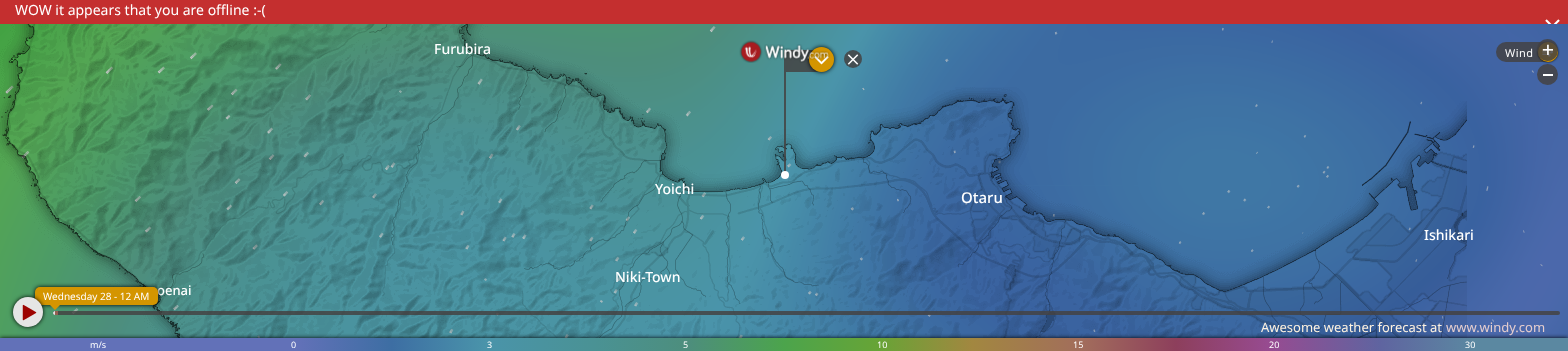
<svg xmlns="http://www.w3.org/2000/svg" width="1568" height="351">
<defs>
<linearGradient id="g1" gradientUnits="userSpaceOnUse" x1="0" y1="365" x2="1568" y2="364"><stop offset="0" stop-color="#6271b8"/><stop offset="0.19" stop-color="#6271b8"/><stop offset="0.25" stop-color="#3d6ea3"/><stop offset="0.31" stop-color="#4a94aa"/><stop offset="0.38" stop-color="#4a9294"/><stop offset="0.44" stop-color="#4d8e7c"/><stop offset="0.5" stop-color="#4ca44c"/><stop offset="0.56" stop-color="#67a436"/><stop offset="0.62" stop-color="#a28740"/><stop offset="0.69" stop-color="#a26d5c"/><stop offset="0.75" stop-color="#8d3f5c"/><stop offset="0.81" stop-color="#974b91"/><stop offset="0.88" stop-color="#5f64a0"/><stop offset="0.94" stop-color="#5b88a1"/><stop offset="1" stop-color="#5b88a1"/></linearGradient>
</defs>
<rect width="100%" height="100%" fill="#fff"/>
<rect width="1568" height="24" fill="#c42f2f"/>
<text x="15" y="15" style="font-family:Noto Sans;font-size:14px;fill:#fff">WOW it appears that you are offline :-(</text>
<image x="1545" y="19" width="15" height="5" href="media/1.png"/>
<image x="699" y="24" width="256" height="161" href="media/8.png"/>
<image x="0" y="24" width="187" height="161" href="media/5.png"/>
<image x="187" y="24" width="256" height="161" href="media/6.png"/>
<image x="443" y="24" width="256" height="161" href="media/7.png"/>
<image x="955" y="24" width="256" height="161" href="media/9.png"/>
<image x="1211" y="24" width="256" height="161" href="media/10.png"/>
<image x="1467" y="24" width="101" height="161" href="media/11.png"/>
<image x="0" y="185" width="187" height="153" href="media/12.png"/>
<image x="187" y="185" width="256" height="153" href="media/13.png"/>
<image x="443" y="185" width="256" height="153" href="media/14.png"/>
<image x="699" y="185" width="256" height="153" href="media/15.png"/>
<image x="955" y="185" width="256" height="153" href="media/16.png"/>
<image x="1211" y="185" width="256" height="153" href="media/17.png"/>
<image x="1467" y="185" width="101" height="153" href="media/18.png"/>
<image x="5" y="26" width="1538" height="312" href="media/31.png"/>
<image x="739" y="40" width="24" height="23" href="media/2.png"/>
<image x="699" y="90" width="256" height="95" href="media/22.png"/>
<rect x="784" y="50" width="2" height="125" fill="#444141d6"/>
<path d="M786 50h29c6 0 11 5 11 11c0 6-5 11-11 11h-29z" fill="#444141d6"/>
<rect x="809" y="47" width="25" height="25" rx="12.5" fill="#000" filter="blur(2px)"/>
<circle cx="821.5" cy="59.5" r="12.5" fill="#d49500"/>
<image x="814" y="56" width="15" height="9" href="media/32.png"/>
<image x="764" y="44" width="66" height="19" href="media/3.png"/>
<rect x="1496" y="42" width="62" height="20" rx="10" fill="#444141d6"/>
<rect x="1538" y="42" width="20" height="20" rx="10" fill="#000" filter="blur(1px)"/>
<circle cx="1548" cy="52" r="10" fill="#d49500"/>
<image x="1542" y="50" width="11" height="7" href="media/34.png"/>
<rect x="1537" y="39" width="21" height="22" rx="10.5" fill="#444141d6"/>
<image x="1542" y="44" width="12" height="11" href="media/4.png"/>
<circle cx="1547.5" cy="74.5" r="10.5" fill="#444751"/>
<rect x="1543" y="74" width="10" height="2" fill="#fff"/>
<image x="0" y="24" width="187" height="161" href="media/19.png"/>
<image x="187" y="24" width="256" height="161" href="media/20.png"/>
<image x="443" y="24" width="256" height="161" href="media/21.png"/>
<image x="955" y="87" width="74" height="98" href="media/23.png"/>
<image x="1362" y="101" width="105" height="84" href="media/24.png"/>
<image x="20" y="185" width="167" height="153" href="media/25.png"/>
<image x="187" y="185" width="256" height="153" href="media/26.png"/>
<image x="443" y="185" width="256" height="153" href="media/27.png"/>
<image x="699" y="185" width="256" height="153" href="media/28.png"/>
<image x="955" y="185" width="256" height="153" href="media/29.png"/>
<image x="1211" y="185" width="256" height="153" href="media/30.png"/>
<circle cx="785" cy="175" r="4" fill="#fff"/>
<circle cx="853" cy="59" r="9" fill="#444141d6"/>
<image x="847" y="54" width="12" height="11" href="media/33.png"/>
<text x="434" y="54" style="font-family:Noto Sans;font-size:14px;font-weight:500;fill:#fff">Furubira</text>
<text x="655" y="194" style="font-family:Noto Sans;font-size:14px;font-weight:500;fill:#fff">Yoichi</text>
<text x="615" y="282" style="font-family:Noto Sans;font-size:14px;font-weight:500;fill:#fff">Niki-Town</text>
<text x="961" y="203" style="font-family:Noto Sans;font-size:15px;font-weight:500;fill:#fff">Otaru</text>
<text x="1424" y="240" style="font-family:Noto Sans;font-size:14px;font-weight:500;fill:#fff">Ishikari</text>
<text x="157" y="295" style="font-family:Noto Sans;font-size:13px;font-weight:500;fill:#fff">oenai</text>
<text x="1505" y="57" style="font-family:Noto Sans;font-size:11px;letter-spacing:0.5px;fill:#fff">Wind</text>
<rect x="35" y="287" width="123" height="18" rx="5" fill="#000" filter="blur(2px)"/>
<rect x="35" y="287" width="123" height="18" rx="5" fill="#d49500"/>
<rect x="13" y="297" width="30" height="30" rx="15" fill="#000" filter="blur(2px)"/>
<circle cx="28" cy="312" r="15" fill="#e5e5e5"/>
<image x="22" y="304" width="15" height="17" href="media/35.png"/>
<text x="43" y="300" style="font-family:Noto Sans;font-size:10px;fill:#fff">Wednesday 28 - 12 AM</text>
<path d="M50 305h10l-5 5z" fill="#d49500"/>
<rect x="53" y="311" width="1507" height="4" rx="2" fill="#444141d6"/>
<path d="M55 311v4c-1 0-2-1-2-2c0-1 1-2 2-2z" fill="#e5e5e5"/>
<rect x="55" y="311" width="3" height="4" fill="#946051"/>
<rect y="338" width="1568" height="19" fill="#000" filter="blur(2px)"/>
<text x="1261" y="332" style="font-family:Noto Sans;font-size:13px;fill:#fff3e1">Awesome weather forecast at</text>
<text x="1446" y="332" style="font-family:Noto Sans;font-size:13px;fill:#e6cece">www.windy.com</text>
<rect y="338" width="1568" height="13" fill="url(#g1)"/>
<text x="90" y="348" style="font-family:Noto Sans;font-size:9px;fill:#fff">m/s</text>
<text x="291" y="348" style="font-family:Noto Sans;font-size:9px;fill:#fff">0</text>
<text x="487" y="348" style="font-family:Noto Sans;font-size:9px;fill:#fff">3</text>
<text x="683" y="348" style="font-family:Noto Sans;font-size:9px;fill:#fff">5</text>
<text x="877" y="348" style="font-family:Noto Sans;font-size:9px;fill:#fff">10</text>
<text x="1073" y="348" style="font-family:Noto Sans;font-size:9px;fill:#fff">15</text>
<text x="1269" y="348" style="font-family:Noto Sans;font-size:9px;fill:#fff">20</text>
<text x="1465" y="348" style="font-family:Noto Sans;font-size:9px;fill:#fff">30</text>
</svg>
